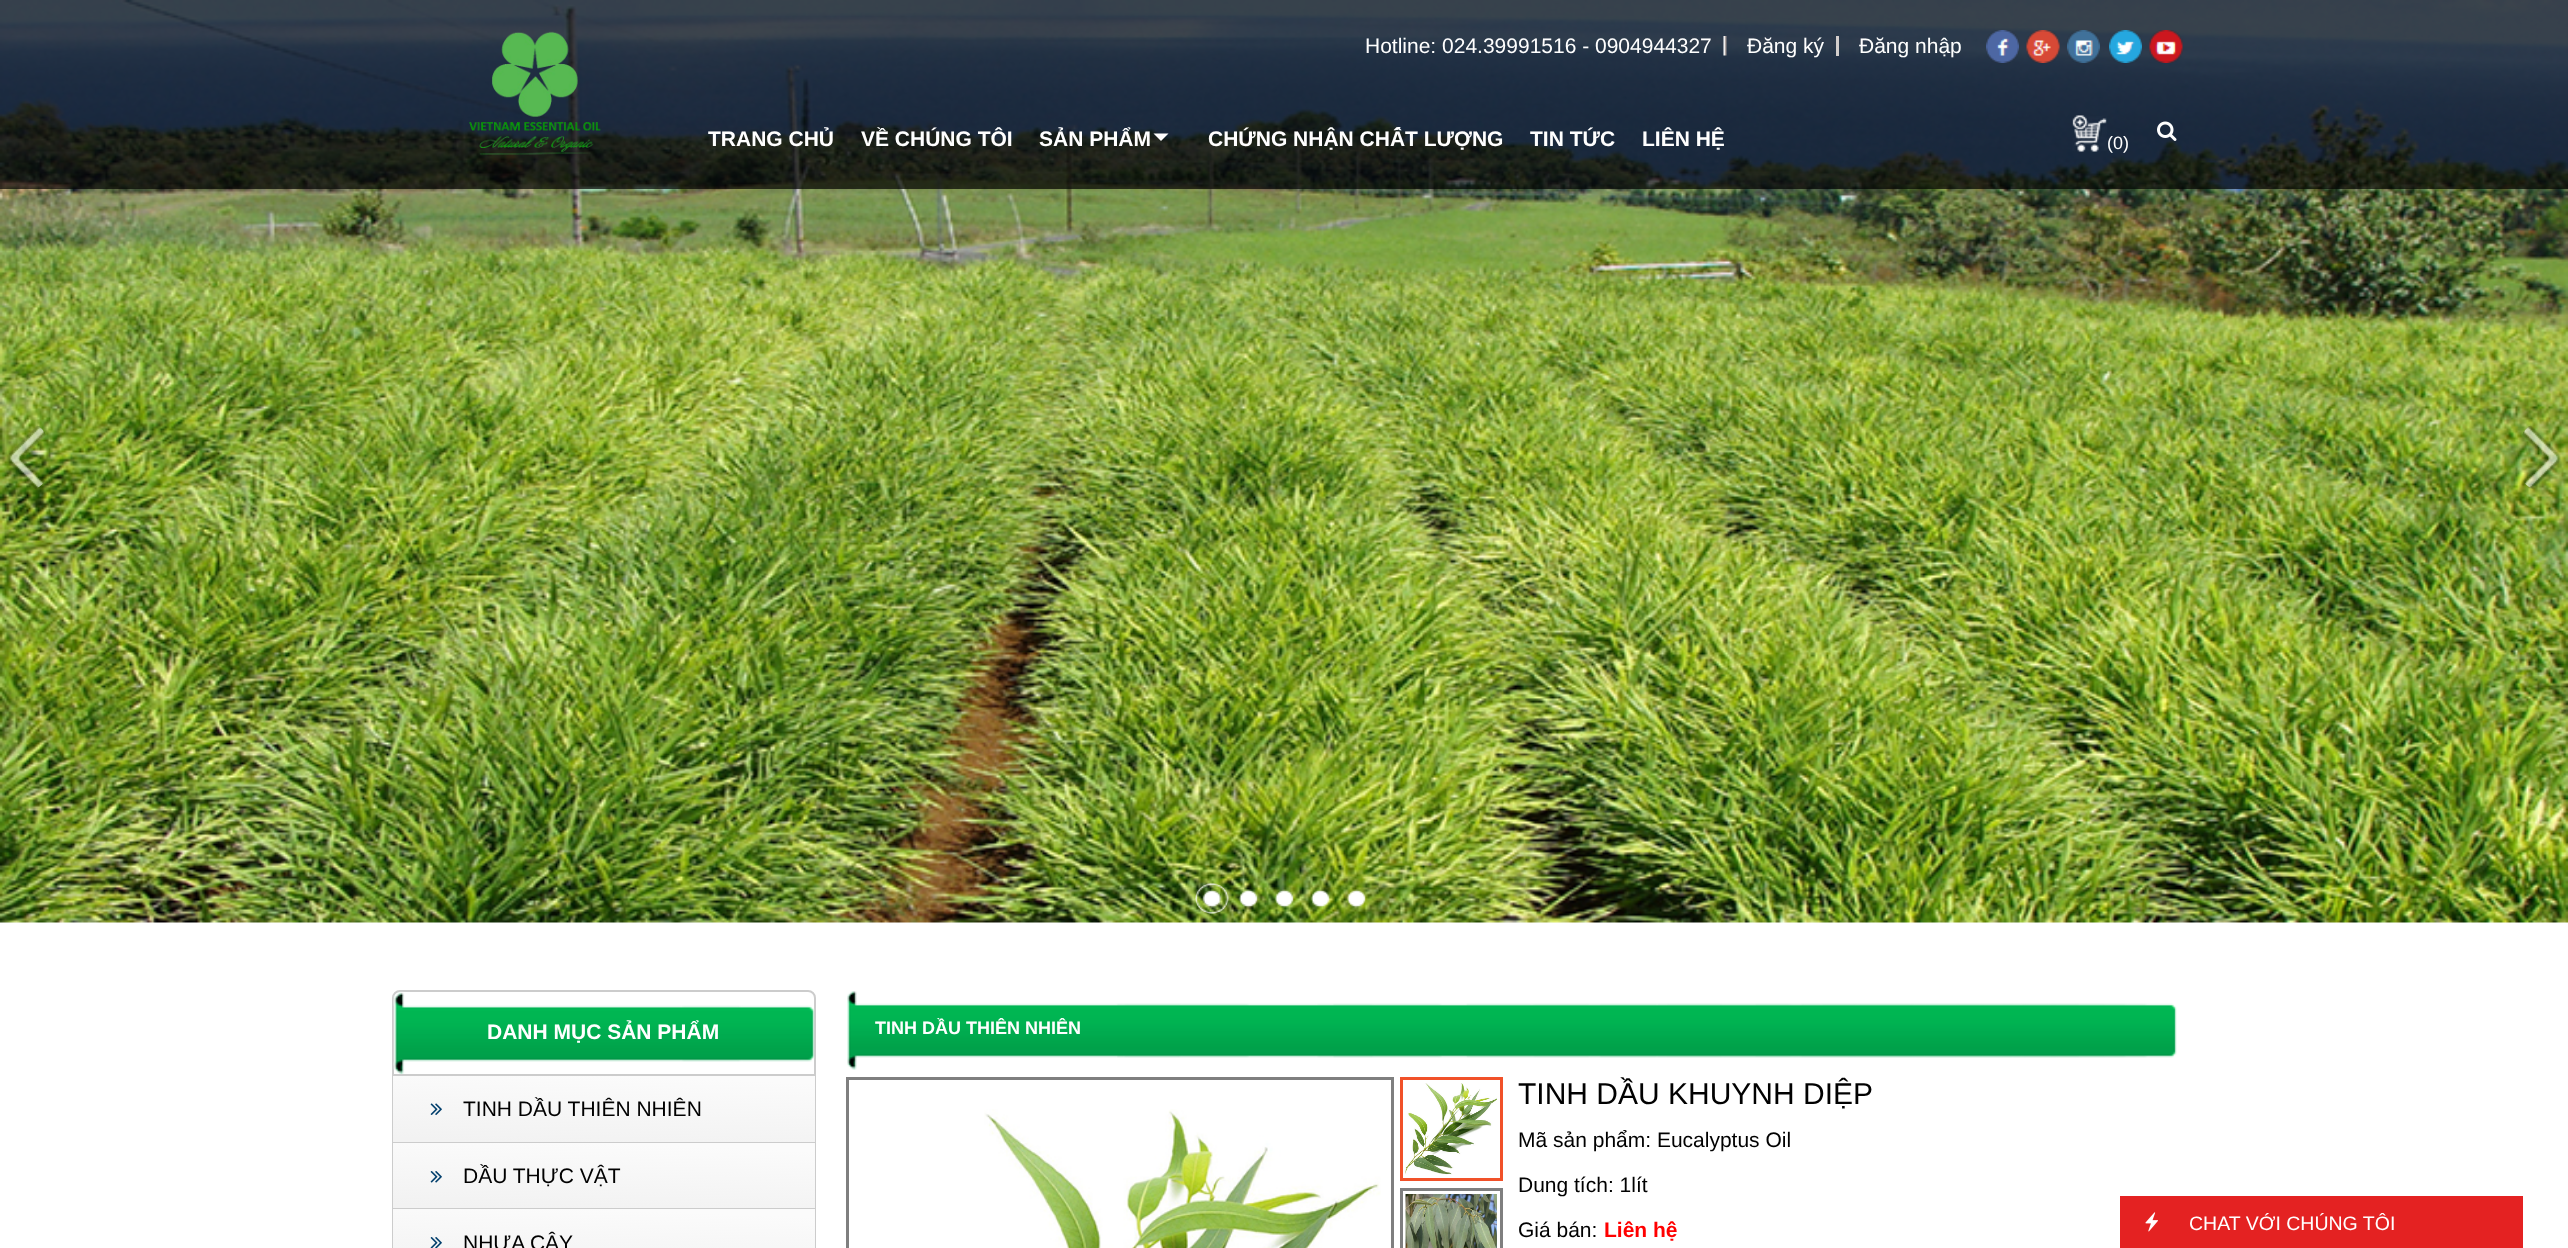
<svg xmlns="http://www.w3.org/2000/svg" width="2568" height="1248">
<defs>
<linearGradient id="g1" gradientUnits="userSpaceOnUse" x1="605" y1="1068" x2="602" y2="1149"><stop offset="0.09" stop-color="#fbfbfb"/><stop offset="0.96" stop-color="#f2f2f2"/></linearGradient>
<linearGradient id="g2" gradientUnits="userSpaceOnUse" x1="605" y1="1136" x2="602" y2="1215"><stop offset="0.09" stop-color="#fbfbfb"/><stop offset="0.96" stop-color="#f2f2f2"/></linearGradient>
<linearGradient id="g3" gradientUnits="userSpaceOnUse" x1="605" y1="1202" x2="602" y2="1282"><stop offset="0.09" stop-color="#fbfbfb"/><stop offset="0.96" stop-color="#f2f2f2"/></linearGradient>
</defs>
<rect width="100%" height="100%" fill="#fff"/>
<image x="0" y="0" width="2568" height="923" href="media/1.png"/>
<image x="7" y="425" width="39" height="64" href="media/2.png"/>
<image x="2522" y="425" width="39" height="64" href="media/3.png"/>
<image x="1195" y="883" width="34" height="31" href="media/4.png"/>
<image x="1238" y="889" width="20" height="19" href="media/5.png"/>
<image x="1274" y="889" width="20" height="19" href="media/6.png"/>
<image x="1310" y="889" width="20" height="19" href="media/7.png"/>
<image x="1346" y="889" width="20" height="19" href="media/8.png"/>
<rect width="2568" height="189" fill="#000000b3"/>
<image x="469" y="31" width="132" height="124" href="media/9.png"/>
<image x="1723" y="36" width="4" height="20" href="media/10.png"/>
<text x="1365" y="53" style="font-family:Liberation Sans;font-size:21px;fill:#fff">Hotline: 024.39991516 - 0904944327</text>
<rect x="1836" y="36" width="3" height="20" fill="#d4cfcd"/>
<text x="1747" y="53" style="font-family:Liberation Sans;font-size:21px;fill:#fff">Đăng ký</text>
<text x="1859" y="53" style="font-family:Liberation Sans;font-size:21px;fill:#fff">Đăng nhập</text>
<image x="1986" y="30" width="33" height="33" href="media/11.png"/>
<image x="2026" y="30" width="34" height="33" href="media/12.png"/>
<image x="2067" y="30" width="33" height="33" href="media/13.png"/>
<image x="2109" y="30" width="33" height="33" href="media/14.png"/>
<image x="2149" y="30" width="34" height="33" href="media/15.png"/>
<text x="708" y="146" style="font-family:Liberation Sans;font-size:21px;font-weight:bold;fill:#fff">TRANG CHỦ</text>
<text x="861" y="146" style="font-family:Liberation Sans;font-size:21px;font-weight:bold;fill:#fff">VỀ CHÚNG TÔI</text>
<text x="1039" y="146" style="font-family:Liberation Sans;font-size:21px;font-weight:bold;fill:#fff">SẢN PHẨM</text>
<path d="M1153.5 133.5h15l-7.5 7.5z" fill="#fff"/>
<text x="1208" y="146" style="font-family:Liberation Sans;font-size:21px;font-weight:bold;fill:#fff">CHỨNG NHẬN CHẤT LƯỢNG</text>
<text x="1530" y="146" style="font-family:Liberation Sans;font-size:21px;font-weight:bold;fill:#fff">TIN TỨC</text>
<text x="1642" y="146" style="font-family:Liberation Sans;font-size:21px;font-weight:bold;fill:#fff">LIÊN HỆ</text>
<image x="2157" y="121" width="20" height="20" href="media/16.png"/>
<image x="2072" y="115" width="35" height="37" href="media/17.png"/>
<text x="2107" y="149" style="font-family:Liberation Sans;font-size:18px;fill:#fff">(0)</text>
<rect x="393" y="991" width="422" height="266" rx="7" fill="none" stroke="#ccc" stroke-width="2"/>
<image x="393" y="991" width="422" height="83" href="media/18.png"/>
<text x="487" y="1039" style="font-family:Liberation Sans;font-size:21px;font-weight:bold;fill:#fff">DANH MỤC SẢN PHẨM</text>
<rect x="393" y="1076" width="422" height="66" fill="url(#g1)"/>
<rect x="393" y="1074" width="422" height="2" fill="#ccc"/>
<rect x="393" y="1142" width="422" height="1" fill="#ccc"/>
<image x="430" y="1103" width="12" height="12" href="media/19.png"/>
<text x="463" y="1116" style="font-family:Liberation Sans;font-size:21px;fill:#010101">TINH DẦU THIÊN NHIÊN</text>
<rect x="393" y="1143" width="422" height="65" fill="url(#g2)"/>
<rect x="393" y="1208" width="422" height="1" fill="#ccc"/>
<image x="430" y="1171" width="12" height="12" href="media/20.png"/>
<text x="463" y="1183" style="font-family:Liberation Sans;font-size:21px;fill:#010101">DẦU THỰC VẬT</text>
<rect x="393" y="1209" width="422" height="39" fill="url(#g3)"/>
<image x="430" y="1237" width="12" height="11" href="media/21.png"/>
<text x="463" y="1250" style="font-family:Liberation Sans;font-size:21px;fill:#010101">NHỰA CÂY</text>
<image x="847" y="991" width="1330" height="79" href="media/22.png"/>
<text x="875" y="1034" style="font-family:Liberation Sans;font-size:18px;font-weight:bold;fill:#fff">TINH DẦU THIÊN NHIÊN</text>
<rect x="847.5" y="1078.5" width="545" height="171" fill="none" stroke="#7f7f7f" stroke-width="3"/>
<image x="984" y="1109" width="397" height="139" href="media/23.png"/>
<rect x="1401.5" y="1078.5" width="100" height="101" fill="none" stroke="#f15129" stroke-width="3"/>
<image x="1405" y="1083" width="92" height="92" href="media/24.png"/>
<rect x="1401.5" y="1189.5" width="100" height="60" fill="none" stroke="#7f7f7f" stroke-width="3"/>
<image x="1405" y="1194" width="92" height="54" href="media/25.png"/>
<text x="1518" y="1104" style="font-family:Liberation Sans;font-size:30px;fill:#010101">TINH DẦU KHUYNH DIỆP</text>
<text x="1518" y="1147" style="font-family:Liberation Sans;font-size:21px;fill:#010101">Mã sản phẩm: Eucalyptus Oil</text>
<text x="1518" y="1192" style="font-family:Liberation Sans;font-size:21px;fill:#010101">Dung tích: 1lít</text>
<text x="1518" y="1237" style="font-family:Liberation Sans;font-size:21px;fill:#010101">Giá bán:</text>
<text x="1604" y="1237" style="font-family:Liberation Sans;font-size:21px;font-weight:bold;fill:#f00">Liên hệ</text>
<rect x="2120" y="1196" width="403" height="52" fill="#e42222"/>
<image x="2145" y="1212" width="13" height="20" href="media/26.png"/>
<text x="2189" y="1230" style="font-family:Liberation Sans;font-size:19.5px;fill:#fff">CHAT VỚI CHÚNG TÔI</text>
</svg>
